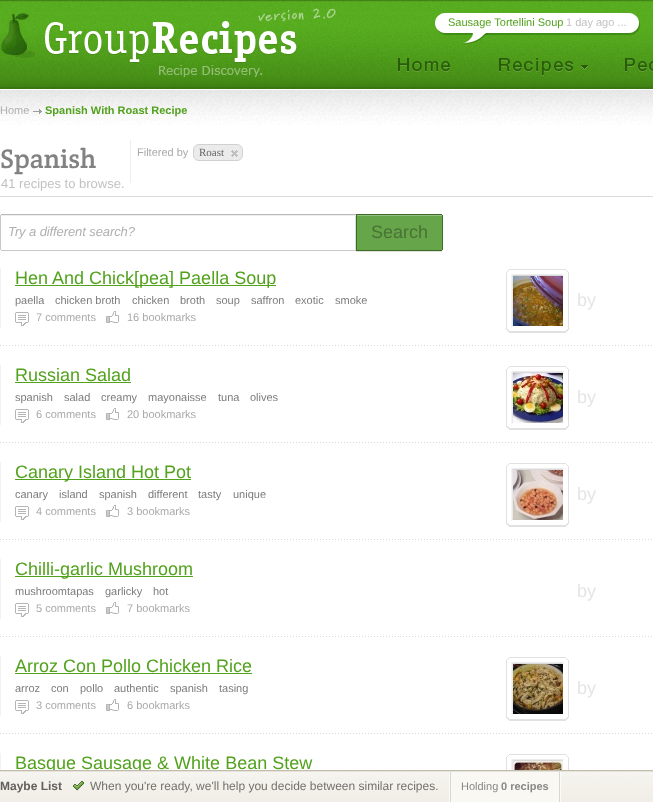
<svg xmlns="http://www.w3.org/2000/svg" width="653" height="802">
<rect width="100%" height="100%" fill="#fff"/>
<image x="0" y="0" width="653" height="125" href="media/1.png"/>
<image x="0" y="7" width="341" height="71" href="media/2.png"/>
<image x="620" y="13" width="20" height="22" href="media/3.png"/>
<image x="435" y="13" width="185" height="31" href="media/4.png"/>
<text x="448" y="26" style="font-family:Liberation Sans;font-size:11px;fill:#52a21d">Sausage Tortellini Soup</text>
<text x="566" y="26" style="font-family:Liberation Sans;font-size:11px;fill:#c2c2c2">1 day ago ...</text>
<image x="395" y="55" width="58" height="23" href="media/5.png"/>
<image x="496" y="55" width="95" height="23" href="media/6.png"/>
<image x="623" y="55" width="30" height="23" href="media/7.png"/>
<text x="0" y="114" style="font-family:Liberation Sans;font-size:11px;fill:#b0b0b0">Home</text>
<image x="33" y="109" width="9" height="5" href="media/8.png"/>
<text x="45" y="114" style="font-family:Liberation Sans;font-size:11px;font-weight:bold;fill:#52a21d">Spanish With Roast Recipe</text>
<text x="0" y="168" style="font-family:Crete Round;font-size:27px;fill:#828282">Spanish</text>
<text x="1" y="188" style="font-family:Liberation Sans;font-size:13px;fill:#c2c2c2">41 recipes to browse.</text>
<rect x="130" y="140" width="1" height="43" fill="#eee"/>
<text x="137" y="156" style="font-family:Liberation Sans;font-size:11px;fill:#aaa">Filtered by</text>
<rect x="193.5" y="144.5" width="49" height="16" rx="5.5" fill="#ebebeb" stroke="#d1d1d1"/>
<text x="199" y="156" style="font-family:Liberation Serif;font-size:11px;fill:#656565">Roast</text>
<image x="231" y="150" width="7" height="7" href="media/9.png"/>
<rect y="196" width="653" height="1" fill="#dbdbdb"/>
<image x="0" y="214" width="355" height="37" href="media/10.png"/>
<text x="8" y="236" style="font-family:Liberation Sans;font-size:13px;font-style:italic;letter-spacing:-0.1px;fill:#b0b0b0">Try a different search?</text>
<image x="355" y="214" width="87" height="38" href="media/11.png"/>
<image x="442" y="214" width="1" height="38" href="media/12.png"/>
<text x="371" y="238" style="font-family:Liberation Sans;font-size:18px;fill:#487334">Search</text>
<rect y="268" width="1" height="60" fill="#f2f2f2"/>
<rect x="15" y="285" width="261" height="1" fill="#52a21d"/>
<text x="15" y="284" style="font-family:Liberation Sans;font-size:18px;fill:#52a21d">Hen And Chick[pea] Paella Soup</text>
<text x="15" y="304" style="font-family:Liberation Sans;font-size:11px;fill:#7c7c7c">paella</text>
<text x="55" y="304" style="font-family:Liberation Sans;font-size:11px;fill:#7c7c7c">chicken broth</text>
<text x="132" y="304" style="font-family:Liberation Sans;font-size:11px;fill:#7c7c7c">chicken</text>
<text x="180" y="304" style="font-family:Liberation Sans;font-size:11px;fill:#7c7c7c">broth</text>
<text x="216" y="304" style="font-family:Liberation Sans;font-size:11px;fill:#7c7c7c">soup</text>
<text x="251" y="304" style="font-family:Liberation Sans;font-size:11px;fill:#7c7c7c">saffron</text>
<text x="295" y="304" style="font-family:Liberation Sans;font-size:11px;fill:#7c7c7c">exotic</text>
<text x="335" y="304" style="font-family:Liberation Sans;font-size:11px;fill:#7c7c7c">smoke</text>
<image x="15" y="312" width="14" height="14" href="media/13.png"/>
<text x="36" y="321" style="font-family:Liberation Sans;font-size:11px;fill:#aaa">7 comments</text>
<image x="106" y="311" width="13" height="12" href="media/14.png"/>
<text x="127" y="321" style="font-family:Liberation Sans;font-size:11px;fill:#aaa">16 bookmarks</text>
<image x="506" y="269" width="63" height="64" href="media/15.png"/>
<image x="513" y="276" width="50" height="50" href="media/16.png"/>
<text x="577" y="306" style="font-family:Liberation Sans;font-size:18px;fill:#e5e5e5">by</text>
<image x="0" y="345" width="652" height="1" href="media/17.png"/>
<rect y="365" width="1" height="60" fill="#f2f2f2"/>
<text x="15" y="381" style="font-family:Liberation Sans;font-size:18px;fill:#52a21d">Russian Salad</text>
<rect x="15" y="382" width="116" height="1" fill="#52a21d"/>
<text x="15" y="401" style="font-family:Liberation Sans;font-size:11px;fill:#7c7c7c">spanish</text>
<text x="64" y="401" style="font-family:Liberation Sans;font-size:11px;fill:#7c7c7c">salad</text>
<text x="101" y="401" style="font-family:Liberation Sans;font-size:11px;fill:#7c7c7c">creamy</text>
<text x="148" y="401" style="font-family:Liberation Sans;font-size:11px;fill:#7c7c7c">mayonaisse</text>
<text x="218" y="401" style="font-family:Liberation Sans;font-size:11px;fill:#7c7c7c">tuna</text>
<text x="250" y="401" style="font-family:Liberation Sans;font-size:11px;fill:#7c7c7c">olives</text>
<image x="15" y="409" width="14" height="14" href="media/13.png"/>
<text x="36" y="418" style="font-family:Liberation Sans;font-size:11px;fill:#aaa">6 comments</text>
<image x="106" y="408" width="13" height="12" href="media/14.png"/>
<text x="127" y="418" style="font-family:Liberation Sans;font-size:11px;fill:#aaa">20 bookmarks</text>
<image x="506" y="366" width="63" height="64" href="media/18.png"/>
<image x="513" y="373" width="50" height="50" href="media/19.png"/>
<text x="577" y="403" style="font-family:Liberation Sans;font-size:18px;fill:#e5e5e5">by</text>
<image x="0" y="442" width="652" height="1" href="media/17.png"/>
<rect y="462" width="1" height="60" fill="#f2f2f2"/>
<rect x="15" y="479" width="176" height="1" fill="#52a21d"/>
<text x="15" y="478" style="font-family:Liberation Sans;font-size:18px;fill:#52a21d">Canary Island Hot Pot</text>
<text x="15" y="498" style="font-family:Liberation Sans;font-size:11px;fill:#7c7c7c">canary</text>
<text x="59" y="498" style="font-family:Liberation Sans;font-size:11px;fill:#7c7c7c">island</text>
<text x="99" y="498" style="font-family:Liberation Sans;font-size:11px;fill:#7c7c7c">spanish</text>
<text x="148" y="498" style="font-family:Liberation Sans;font-size:11px;fill:#7c7c7c">different</text>
<text x="198" y="498" style="font-family:Liberation Sans;font-size:11px;fill:#7c7c7c">tasty</text>
<text x="233" y="498" style="font-family:Liberation Sans;font-size:11px;fill:#7c7c7c">unique</text>
<image x="15" y="506" width="14" height="14" href="media/13.png"/>
<text x="36" y="515" style="font-family:Liberation Sans;font-size:11px;fill:#aaa">4 comments</text>
<image x="106" y="505" width="13" height="12" href="media/14.png"/>
<text x="127" y="515" style="font-family:Liberation Sans;font-size:11px;fill:#aaa">3 bookmarks</text>
<image x="506" y="463" width="63" height="64" href="media/20.png"/>
<image x="513" y="470" width="50" height="50" href="media/21.png"/>
<text x="577" y="500" style="font-family:Liberation Sans;font-size:18px;fill:#e5e5e5">by</text>
<image x="0" y="539" width="652" height="1" href="media/17.png"/>
<rect y="559" width="1" height="60" fill="#f2f2f2"/>
<rect x="15" y="576" width="178" height="1" fill="#52a21d"/>
<text x="15" y="575" style="font-family:Liberation Sans;font-size:18px;fill:#52a21d">Chilli-garlic Mushroom</text>
<text x="15" y="595" style="font-family:Liberation Sans;font-size:11px;fill:#7c7c7c">mushroomtapas</text>
<text x="105" y="595" style="font-family:Liberation Sans;font-size:11px;fill:#7c7c7c">garlicky</text>
<text x="153" y="595" style="font-family:Liberation Sans;font-size:11px;fill:#7c7c7c">hot</text>
<image x="15" y="603" width="14" height="14" href="media/13.png"/>
<text x="36" y="612" style="font-family:Liberation Sans;font-size:11px;fill:#aaa">5 comments</text>
<image x="106" y="602" width="13" height="12" href="media/14.png"/>
<text x="127" y="612" style="font-family:Liberation Sans;font-size:11px;fill:#aaa">7 bookmarks</text>
<text x="577" y="597" style="font-family:Liberation Sans;font-size:18px;fill:#e5e5e5">by</text>
<image x="0" y="636" width="652" height="1" href="media/17.png"/>
<rect y="656" width="1" height="60" fill="#f2f2f2"/>
<text x="15" y="672" style="font-family:Liberation Sans;font-size:18px;fill:#52a21d">Arroz Con Pollo Chicken Rice</text>
<rect x="15" y="673" width="237" height="1" fill="#52a21d"/>
<text x="15" y="692" style="font-family:Liberation Sans;font-size:11px;fill:#7c7c7c">arroz</text>
<text x="51" y="692" style="font-family:Liberation Sans;font-size:11px;fill:#7c7c7c">con</text>
<text x="80" y="692" style="font-family:Liberation Sans;font-size:11px;fill:#7c7c7c">pollo</text>
<text x="114" y="692" style="font-family:Liberation Sans;font-size:11px;fill:#7c7c7c">authentic</text>
<text x="170" y="692" style="font-family:Liberation Sans;font-size:11px;fill:#7c7c7c">spanish</text>
<text x="219" y="692" style="font-family:Liberation Sans;font-size:11px;fill:#7c7c7c">tasing</text>
<image x="15" y="700" width="14" height="14" href="media/13.png"/>
<text x="36" y="709" style="font-family:Liberation Sans;font-size:11px;fill:#aaa">3 comments</text>
<image x="106" y="699" width="13" height="12" href="media/14.png"/>
<text x="127" y="709" style="font-family:Liberation Sans;font-size:11px;fill:#aaa">6 bookmarks</text>
<image x="506" y="657" width="63" height="64" href="media/22.png"/>
<image x="513" y="664" width="50" height="50" href="media/23.png"/>
<text x="577" y="694" style="font-family:Liberation Sans;font-size:18px;fill:#e5e5e5">by</text>
<image x="0" y="733" width="652" height="1" href="media/17.png"/>
<rect y="753" width="1" height="17" fill="#f2f2f2"/>
<text x="15" y="769" style="font-family:Liberation Sans;font-size:18px;fill:#52a21d">Basque Sausage &amp; White Bean Stew</text>
<image x="506" y="754" width="63" height="16" href="media/24.png"/>
<image x="513" y="761" width="50" height="9" href="media/25.png"/>
<image x="0" y="770" width="653" height="32" href="media/26.png"/>
<text x="0" y="790" style="font-family:Liberation Sans;font-size:12px;font-weight:bold;fill:#61605e">Maybe List</text>
<image x="73" y="781" width="11" height="10" href="media/27.png"/>
<text x="90" y="790" style="font-family:Liberation Sans;font-size:12px;fill:#73716f">When you're ready, we'll help you decide between similar recipes.</text>
<rect x="451" y="772" width="108" height="30" fill="#faf8f3"/>
<rect x="560" y="772" width="1" height="30" fill="#fbfbf9"/>
<rect x="449" y="772" width="1" height="30" fill="#fbfbf9"/>
<rect x="559" y="772" width="1" height="30" fill="#d9d7d2"/>
<rect x="450" y="772" width="1" height="30" fill="#d9d7d2"/>
<text x="461" y="790" style="font-family:Liberation Sans;font-size:11px;fill:#8a8886">Holding</text>
<text x="501" y="790" style="font-family:Liberation Sans;font-size:11px;font-weight:bold;fill:#8a8886">0 recipes</text>
</svg>
